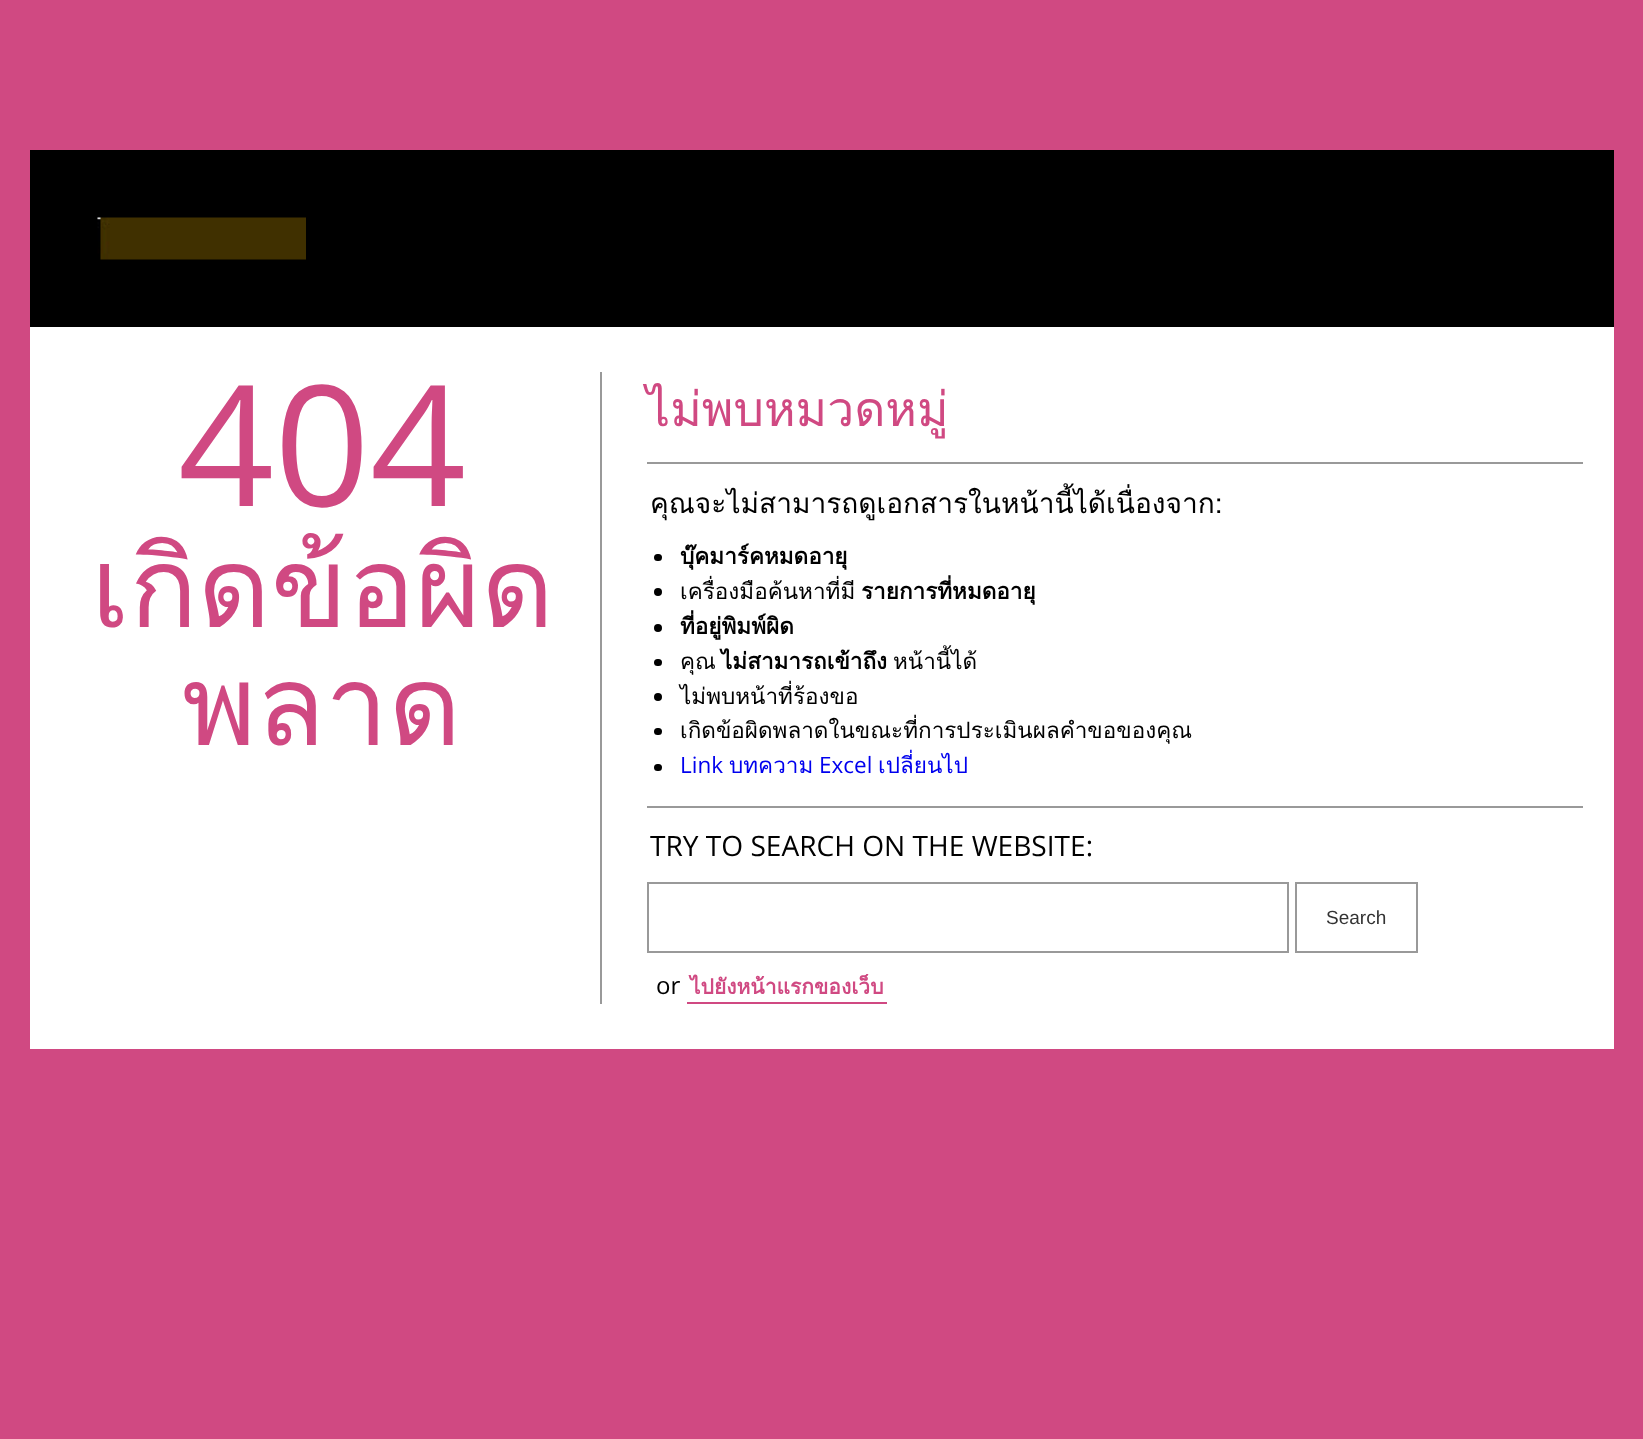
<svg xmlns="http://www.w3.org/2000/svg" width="1643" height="1439">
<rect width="100%" height="100%" fill="#d04982"/>
<rect x="30" y="327" width="1584" height="722" fill="#fff"/>
<rect x="30" y="150" width="1584" height="177" fill="#000"/>
<image x="97" y="217" width="209" height="43" href="media/1.png"/>
<text x="178" y="506" style="font-family:Open Sans;font-size:168px;fill:#d04982">404</text>
<text x="91" y="627" style="font-family:Loma;font-size:112.5px;fill:#d04982">เกิดข้อผิด</text>
<text x="182" y="745" style="font-family:Loma;font-size:112.5px;fill:#d04982">พลาด</text>
<rect x="600" y="372" width="2" height="632" fill="#999"/>
<text x="646" y="426" style="font-family:Loma;font-size:48px;fill:#d04982">ไม่พบหมวดหมู่</text>
<rect x="647" y="462" width="936" height="2" fill="#999"/>
<text x="650" y="513" style="font-family:Loma;font-size:28.1px;fill:#000">คุณจะไม่สามารถดูเอกสารในหน้านี้ได้เนื่องจาก:</text>
<rect x="654" y="554" width="8" height="7" rx="3.5" fill="#000"/>
<text x="680" y="564" style="font-family:Loma;font-size:22.5px;font-weight:bold;fill:#000">บุ๊คมาร์คหมดอายุ</text>
<circle cx="658" cy="592" r="4" fill="#000"/>
<text x="680" y="599" style="font-family:Loma;font-size:22.5px;fill:#000">เครื่องมือค้นหาที่มี</text>
<text x="861" y="599" style="font-family:Loma;font-size:22.5px;font-weight:bold;fill:#000">รายการที่หมดอายุ</text>
<circle cx="658" cy="628" r="4" fill="#000"/>
<text x="680" y="634" style="font-family:Loma;font-size:22.5px;font-weight:bold;fill:#000">ที่อยู่พิมพ์ผิด</text>
<rect x="654" y="659" width="8" height="7" rx="3.5" fill="#000"/>
<text x="680" y="669" style="font-family:Loma;font-size:22.5px;fill:#000">คุณ</text>
<text x="721" y="669" style="font-family:Loma;font-size:22.5px;font-weight:bold;fill:#000">ไม่สามารถเข้าถึง</text>
<text x="893" y="669" style="font-family:Loma;font-size:22.5px;fill:#000">หน้านี้ได้</text>
<circle cx="658" cy="697" r="4" fill="#000"/>
<text x="680" y="704" style="font-family:Loma;font-size:22.5px;fill:#000">ไม่พบหน้าที่ร้องขอ</text>
<rect x="654" y="728" width="8" height="7" rx="3.5" fill="#000"/>
<text x="680" y="738" style="font-family:Loma;font-size:22.5px;fill:#000">เกิดข้อผิดพลาดในขณะที่การประเมินผลคำขอของคุณ</text>
<rect x="654" y="764" width="8" height="7" rx="3.5" fill="#000"/>
<text x="680" y="773" style="font-family:Open Sans;font-size:22.5px;fill:#00e">Link</text>
<text x="729" y="773" style="font-family:Loma;font-size:22.5px;fill:#00e">บทความ</text>
<text x="819" y="773" style="font-family:Open Sans;font-size:22.5px;fill:#00e">Excel</text>
<text x="878" y="773" style="font-family:Loma;font-size:22.5px;fill:#00e">เปลี่ยนไป</text>
<rect x="647" y="806" width="936" height="2" fill="#999"/>
<text x="650" y="856" style="font-family:Open Sans;font-size:28.1px;fill:#000">TRY TO SEARCH ON THE WEBSITE:</text>
<rect x="648" y="883" width="640" height="69" fill="none" stroke="#999" stroke-width="2"/>
<rect x="1296" y="883" width="121" height="69" fill="none" stroke="#999" stroke-width="2"/>
<text x="1326" y="924" style="font-family:Liberation Sans;font-size:19px;fill:#333">Search</text>
<text x="656" y="994" style="font-family:Open Sans;font-size:24px;fill:#000">or</text>
<text x="690" y="994" style="font-family:Loma;font-size:21px;font-weight:bold;fill:#d04982">ไปยังหน้าแรกของเว็บ</text>
<rect x="687" y="1002" width="200" height="2" fill="#d04982"/>
</svg>
